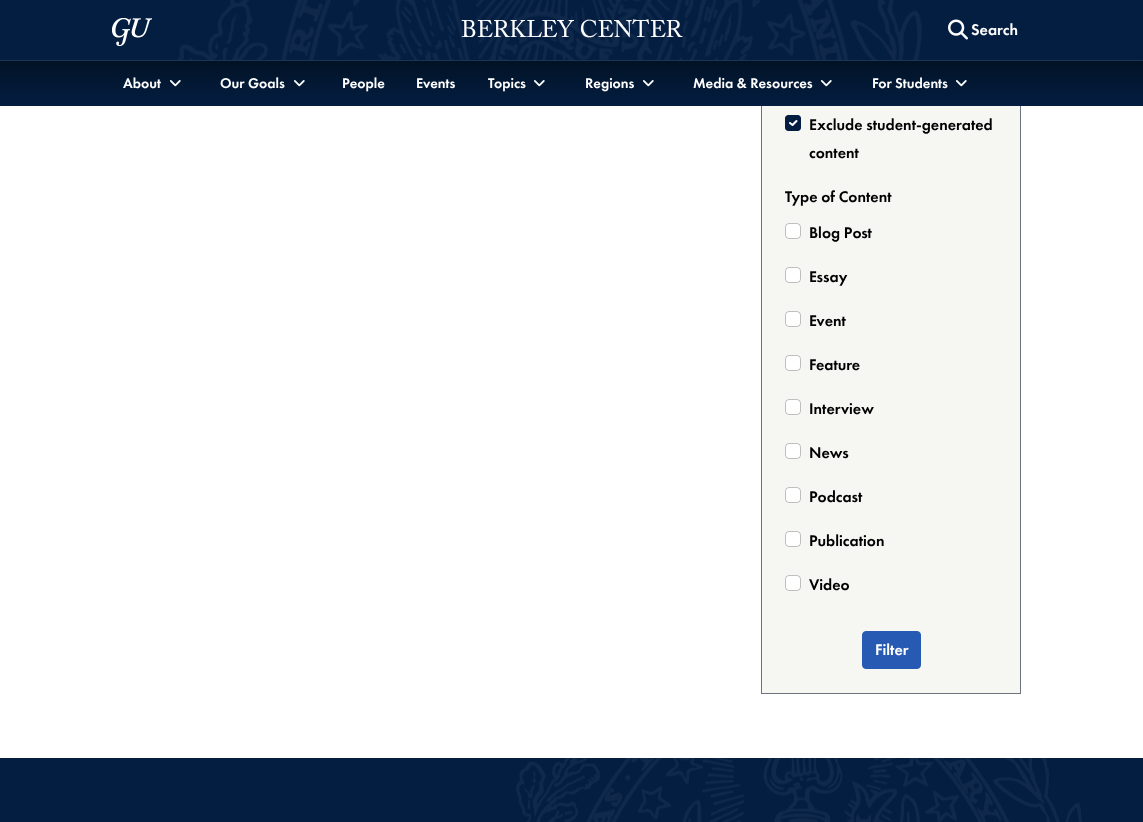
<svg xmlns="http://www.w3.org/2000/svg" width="1143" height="822">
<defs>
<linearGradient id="g1" gradientUnits="userSpaceOnUse" x1="572" y1="61" x2="572" y2="106"><stop offset="0" stop-color="#011225"/><stop offset="1" stop-color="#041e42"/></linearGradient>
</defs>
<rect width="100%" height="100%" fill="#fff"/>
<rect x="762" y="106" width="258" height="587" fill="#f6f6f3"/>
<rect x="761.5" y="-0.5" width="259" height="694" fill="none" stroke="#6c757d"/>
<rect width="1143" height="60" fill="#041e42"/>
<image x="178" y="0" width="744" height="60" href="media/1.png"/>
<image x="112" y="18" width="40" height="28" href="media/2.png"/>
<text x="461" y="37" style="font-family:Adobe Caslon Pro;font-size:24px;fill:#fff">BERKLEY CENTER</text>
<image x="948" y="19" width="20" height="21" href="media/3.png"/>
<text x="971" y="35" style="font-family:Futura PT;font-size:16px;font-weight:500;fill:#fff">Search</text>
<rect y="61" width="1143" height="45" fill="url(#g1)"/>
<rect y="60" width="1143" height="1" fill="#1d3555"/>
<text x="123" y="88" style="font-family:Futura PT;font-size:14.5px;font-weight:500;fill:#fff">About</text>
<image x="169" y="80" width="12" height="7" href="media/4.png"/>
<text x="220" y="88" style="font-family:Futura PT;font-size:14.5px;font-weight:500;fill:#fff">Our Goals</text>
<image x="293" y="80" width="12" height="7" href="media/4.png"/>
<text x="342" y="88" style="font-family:Futura PT;font-size:14.5px;font-weight:500;fill:#fff">People</text>
<text x="416" y="88" style="font-family:Futura PT;font-size:14.5px;font-weight:500;fill:#fff">Events</text>
<text x="488" y="88" style="font-family:Futura PT;font-size:14.5px;font-weight:500;fill:#fff">Topics</text>
<image x="533" y="80" width="12" height="7" href="media/4.png"/>
<text x="585" y="88" style="font-family:Futura PT;font-size:14.5px;font-weight:500;fill:#fff">Regions</text>
<image x="642" y="80" width="12" height="7" href="media/4.png"/>
<text x="693" y="88" style="font-family:Futura PT;font-size:14.5px;font-weight:500;fill:#fff">Media &amp; Resources</text>
<image x="820" y="80" width="12" height="7" href="media/4.png"/>
<text x="872" y="88" style="font-family:Futura PT;font-size:14.5px;font-weight:500;fill:#fff">For Students</text>
<image x="955" y="80" width="12" height="7" href="media/4.png"/>
<rect x="785" y="115" width="16" height="16" rx="4" fill="#041e42"/>
<path d="M790 123l2.5 2l4-4" fill="none" stroke="#fff" stroke-width="2.1" stroke-linecap="round" stroke-linejoin="round"/>
<rect x="785.5" y="115.5" width="15" height="15" rx="3.5" fill="none" stroke="#041e42"/>
<text x="809" y="130" style="font-family:Futura PT;font-size:16px;font-weight:500;fill:#000">Exclude student-generated</text>
<text x="809" y="158" style="font-family:Futura PT;font-size:16px;font-weight:500;fill:#000">content</text>
<text x="785" y="202" style="font-family:Futura PT;font-size:16px;font-weight:500;fill:#000">Type of Content</text>
<rect x="785" y="223" width="16" height="16" rx="4" fill="#fff"/>
<rect x="785.5" y="223.5" width="15" height="15" rx="3.5" fill="none" stroke="#00000040"/>
<text x="809" y="238" style="font-family:Futura PT;font-size:16px;font-weight:500;fill:#000">Blog Post</text>
<rect x="785" y="267" width="16" height="16" rx="4" fill="#fff"/>
<rect x="785.5" y="267.5" width="15" height="15" rx="3.5" fill="none" stroke="#00000040"/>
<text x="809" y="282" style="font-family:Futura PT;font-size:16px;font-weight:500;fill:#000">Essay</text>
<rect x="785" y="311" width="16" height="16" rx="4" fill="#fff"/>
<rect x="785.5" y="311.5" width="15" height="15" rx="3.5" fill="none" stroke="#00000040"/>
<text x="809" y="326" style="font-family:Futura PT;font-size:16px;font-weight:500;fill:#000">Event</text>
<rect x="785" y="355" width="16" height="16" rx="4" fill="#fff"/>
<rect x="785.5" y="355.5" width="15" height="15" rx="3.5" fill="none" stroke="#00000040"/>
<text x="809" y="370" style="font-family:Futura PT;font-size:16px;font-weight:500;fill:#000">Feature</text>
<rect x="785" y="399" width="16" height="16" rx="4" fill="#fff"/>
<rect x="785.5" y="399.5" width="15" height="15" rx="3.5" fill="none" stroke="#00000040"/>
<text x="809" y="414" style="font-family:Futura PT;font-size:16px;font-weight:500;fill:#000">Interview</text>
<rect x="785" y="443" width="16" height="16" rx="4" fill="#fff"/>
<rect x="785.5" y="443.5" width="15" height="15" rx="3.5" fill="none" stroke="#00000040"/>
<text x="809" y="458" style="font-family:Futura PT;font-size:16px;font-weight:500;fill:#000">News</text>
<rect x="785" y="487" width="16" height="16" rx="4" fill="#fff"/>
<rect x="785.5" y="487.5" width="15" height="15" rx="3.5" fill="none" stroke="#00000040"/>
<text x="809" y="502" style="font-family:Futura PT;font-size:16px;font-weight:500;fill:#000">Podcast</text>
<rect x="785" y="531" width="16" height="16" rx="4" fill="#fff"/>
<rect x="785.5" y="531.5" width="15" height="15" rx="3.5" fill="none" stroke="#00000040"/>
<text x="809" y="546" style="font-family:Futura PT;font-size:16px;font-weight:500;fill:#000">Publication</text>
<rect x="785" y="575" width="16" height="16" rx="4" fill="#fff"/>
<rect x="785.5" y="575.5" width="15" height="15" rx="3.5" fill="none" stroke="#00000040"/>
<text x="809" y="590" style="font-family:Futura PT;font-size:16px;font-weight:500;fill:#000">Video</text>
<rect x="862.5" y="631.5" width="58" height="37" rx="3.5" fill="#265ab3" stroke="#265ab3"/>
<text x="875" y="655" style="font-family:Futura PT;font-size:16px;font-weight:500;fill:#fff">Filter</text>
<rect y="758" width="1143" height="64" fill="#041e42"/>
<image x="516" y="758" width="566" height="64" href="media/5.png"/>
</svg>
